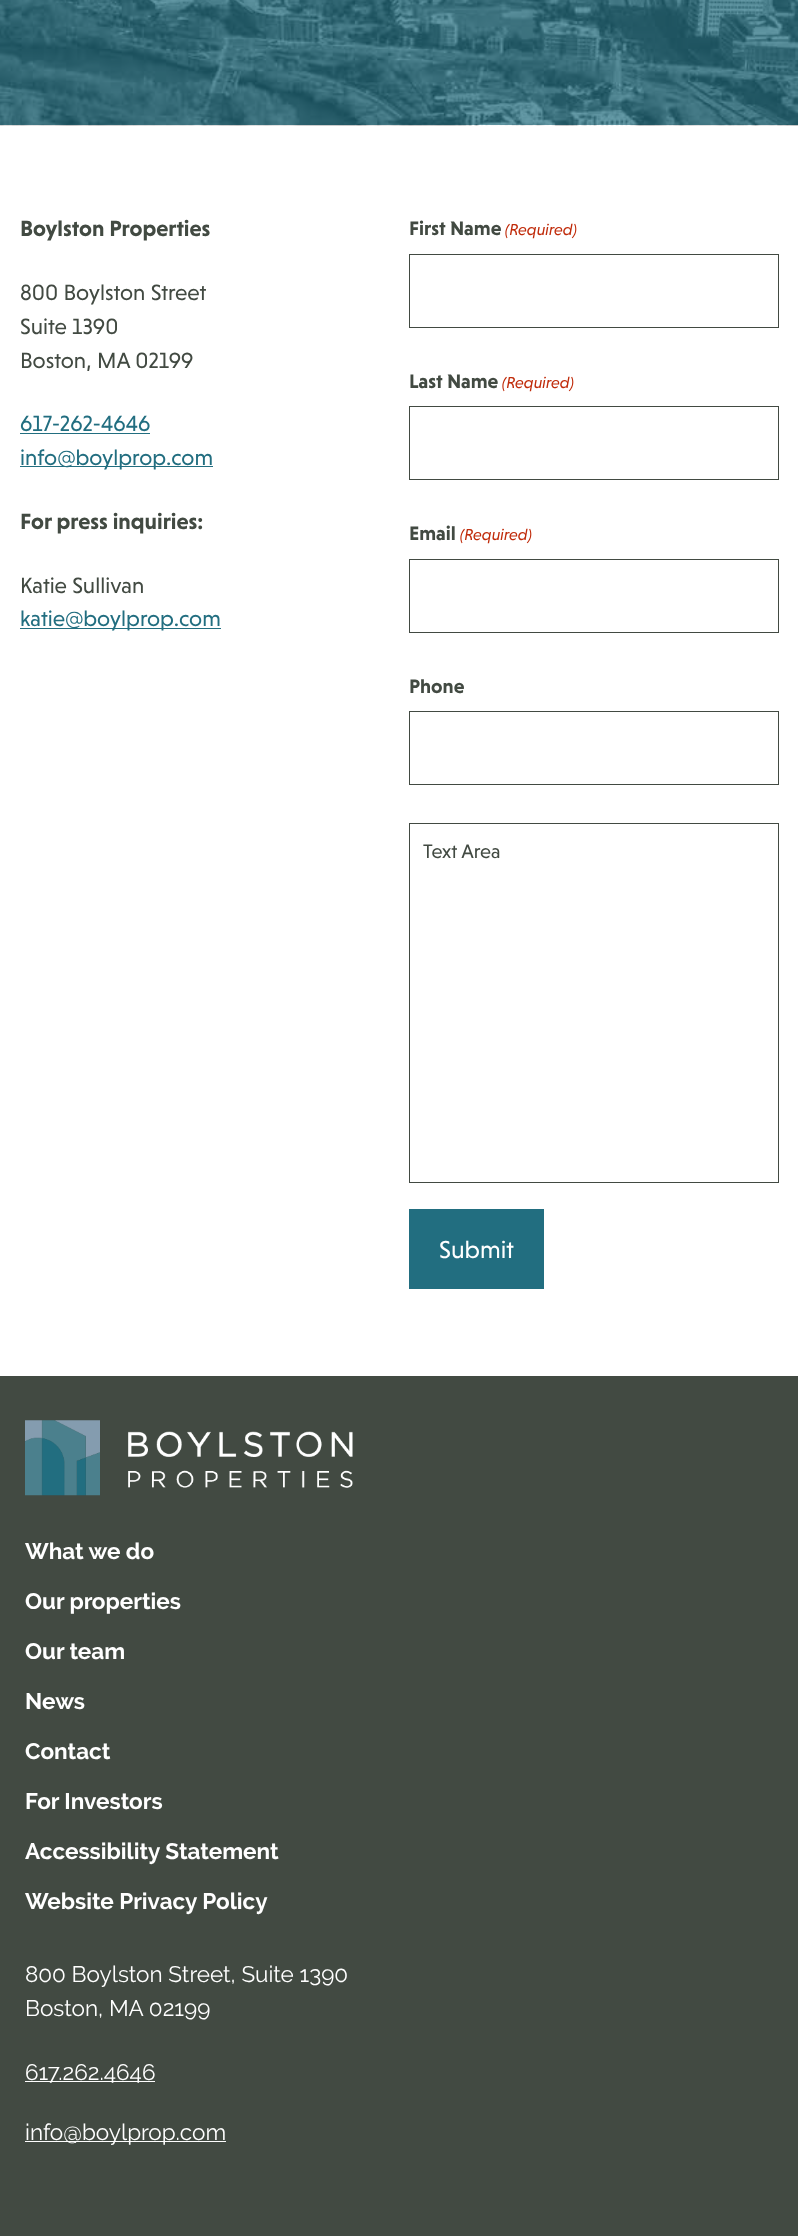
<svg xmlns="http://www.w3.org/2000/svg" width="798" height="2236">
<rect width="100%" height="100%" fill="#fff"/>
<image x="0" y="0" width="798" height="126" href="media/1.png"/>
<text x="20" y="236" style="font-family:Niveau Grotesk;font-size:22.5px;font-weight:bold;fill:#424a42">Boylston Properties</text>
<text x="20" y="300" style="font-family:Niveau Grotesk;font-size:22.5px;fill:#424a42">800 Boylston Street</text>
<text x="20" y="334" style="font-family:Niveau Grotesk;font-size:22.5px;fill:#424a42">Suite 1390</text>
<text x="20" y="368" style="font-family:Niveau Grotesk;font-size:22.5px;fill:#424a42">Boston, MA 02199</text>
<text x="20" y="431" style="font-family:Niveau Grotesk;font-size:22.5px;fill:#226e80">617-262-4646</text>
<rect x="20" y="433" width="130" height="1" fill="#226e80"/>
<rect x="20" y="466" width="193" height="1" fill="#226e80"/>
<text x="20" y="465" style="font-family:Niveau Grotesk;font-size:22.5px;fill:#226e80">info@boylprop.com</text>
<text x="20" y="529" style="font-family:Niveau Grotesk;font-size:22.5px;font-weight:bold;fill:#424a42">For press inquiries:</text>
<text x="20" y="593" style="font-family:Niveau Grotesk;font-size:22.5px;fill:#424a42">Katie Sullivan</text>
<rect x="20" y="628" width="201" height="1" fill="#226e80"/>
<text x="20" y="626" style="font-family:Niveau Grotesk;font-size:22.5px;fill:#226e80">katie@boylprop.com</text>
<text x="409" y="235" style="font-family:Niveau Grotesk;font-size:20px;font-weight:bold;fill:#424a42">First Name</text>
<text x="505" y="235" style="font-family:Niveau Grotesk;font-size:16.25px;font-style:italic;fill:#c02b0a">(Required)</text>
<rect x="409.5" y="254.5" width="369" height="73" fill="none" stroke="#424a42"/>
<text x="409" y="388" style="font-family:Niveau Grotesk;font-size:20px;font-weight:bold;fill:#424a42">Last Name</text>
<text x="502" y="388" style="font-family:Niveau Grotesk;font-size:16.25px;font-style:italic;fill:#c02b0a">(Required)</text>
<rect x="409.5" y="406.5" width="369" height="73" fill="none" stroke="#424a42"/>
<text x="409" y="540" style="font-family:Niveau Grotesk;font-size:20px;font-weight:bold;fill:#424a42">Email</text>
<text x="460" y="540" style="font-family:Niveau Grotesk;font-size:16.25px;font-style:italic;fill:#c02b0a">(Required)</text>
<rect x="409.5" y="559.5" width="369" height="73" fill="none" stroke="#424a42"/>
<text x="409" y="693" style="font-family:Niveau Grotesk;font-size:20px;font-weight:bold;fill:#424a42">Phone</text>
<rect x="409.5" y="711.5" width="369" height="73" fill="none" stroke="#424a42"/>
<rect x="409.5" y="823.5" width="369" height="359" fill="none" stroke="#424a42"/>
<text x="423" y="858" style="font-family:Niveau Grotesk;font-size:20px;fill:#424a42">Text Area</text>
<rect x="409" y="1209" width="135" height="80" fill="#226e80"/>
<text x="439" y="1258" style="font-family:Niveau Grotesk;font-size:25px;fill:#fff">Submit</text>
<rect y="1376" width="798" height="860" fill="#424a42"/>
<image x="25" y="1420" width="328" height="76" href="media/2.png"/>
<text x="25" y="1559" style="font-family:Raleway;font-size:22.5px;font-weight:bold;fill:#fff">What we do</text>
<text x="25" y="1609" style="font-family:Raleway;font-size:22.5px;font-weight:bold;fill:#fff">Our properties</text>
<text x="25" y="1659" style="font-family:Raleway;font-size:22.5px;font-weight:bold;fill:#fff">Our team</text>
<text x="25" y="1709" style="font-family:Raleway;font-size:22.5px;font-weight:bold;fill:#fff">News</text>
<text x="25" y="1759" style="font-family:Raleway;font-size:22.5px;font-weight:bold;fill:#fff">Contact</text>
<text x="25" y="1809" style="font-family:Raleway;font-size:22.5px;font-weight:bold;fill:#fff">For Investors</text>
<text x="25" y="1859" style="font-family:Raleway;font-size:22.5px;font-weight:bold;fill:#fff">Accessibility Statement</text>
<text x="25" y="1909" style="font-family:Raleway;font-size:22.5px;font-weight:bold;fill:#fff">Website Privacy Policy</text>
<text x="25" y="1982" style="font-family:Raleway;font-size:22.5px;fill:#fff">800 Boylston Street, Suite 1390</text>
<text x="25" y="2016" style="font-family:Raleway;font-size:22.5px;fill:#fff">Boston, MA 02199</text>
<rect x="25" y="2081" width="130" height="1" fill="#fff"/>
<text x="25" y="2080" style="font-family:Raleway;font-size:22.5px;fill:#fff">617.262.4646</text>
<rect x="25" y="2141" width="201" height="1" fill="#fff"/>
<text x="25" y="2140" style="font-family:Raleway;font-size:22.5px;fill:#fff">info@boylprop.com</text>
</svg>
